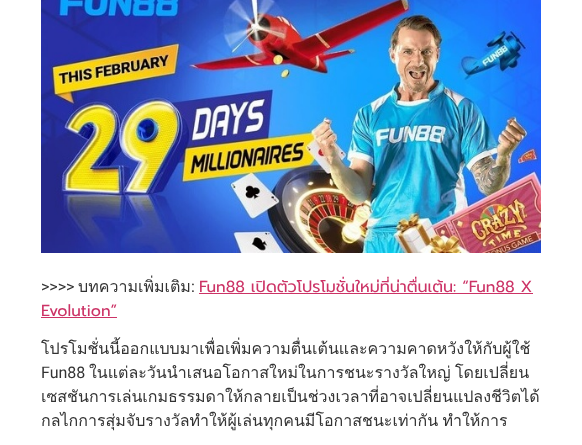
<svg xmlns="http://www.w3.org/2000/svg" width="582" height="445">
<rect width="100%" height="100%" fill="#fff"/>
<image x="41" y="0" width="500" height="253" href="media/1.png"/>
<text x="41" y="292" style="font-family:Roboto;font-size:16px;fill:#333">&gt;&gt;&gt;&gt;</text>
<text x="78" y="292" style="font-family:Loma;font-size:16px;fill:#333">บทความเพิ่มเติม</text>
<text x="191" y="292" style="font-family:Roboto;font-size:16px;fill:#333">:</text>
<text x="199" y="292" style="font-family:Prompt;font-size:16px;fill:#c36">Fun88 เปิดตัวโปรโมชั่นใหม่ที่น่าตื่นเต้น: “Fun88 X</text>
<rect x="199" y="293" width="334" height="1" fill="#c36"/>
<text x="41" y="316" style="font-family:Prompt;font-size:16px;fill:#c36">Evolution”</text>
<rect x="41" y="317" width="76" height="1" fill="#c36"/>
<text x="41" y="354" style="font-family:Loma;font-size:16px;fill:#333">โปรโมชั่นนี้ออกแบบมาเพื่อเพิ่มความตื่นเต้นและความคาดหวังให้กับผู้ใช้</text>
<text x="41" y="378" style="font-family:Roboto;font-size:16px;fill:#333">Fun88</text>
<text x="89" y="378" word-spacing="-1" style="font-family:Loma;font-size:16px;fill:#333">ในแต่ละวันนำเสนอโอกาสใหม่ในการชนะรางวัลใหญ่ โดยเปลี่ยน</text>
<text x="41" y="402" style="font-family:Loma;font-size:16px;fill:#333">เซสชันการเล่นเกมธรรมดาให้กลายเป็นช่วงเวลาที่อาจเปลี่ยนแปลงชีวิตได้</text>
<text x="41" y="426" word-spacing="-1" style="font-family:Loma;font-size:16px;fill:#333">กลไกการสุ่มจับรางวัลทำให้ผู้เล่นทุกคนมีโอกาสชนะเท่ากัน ทำให้การ</text>
</svg>
